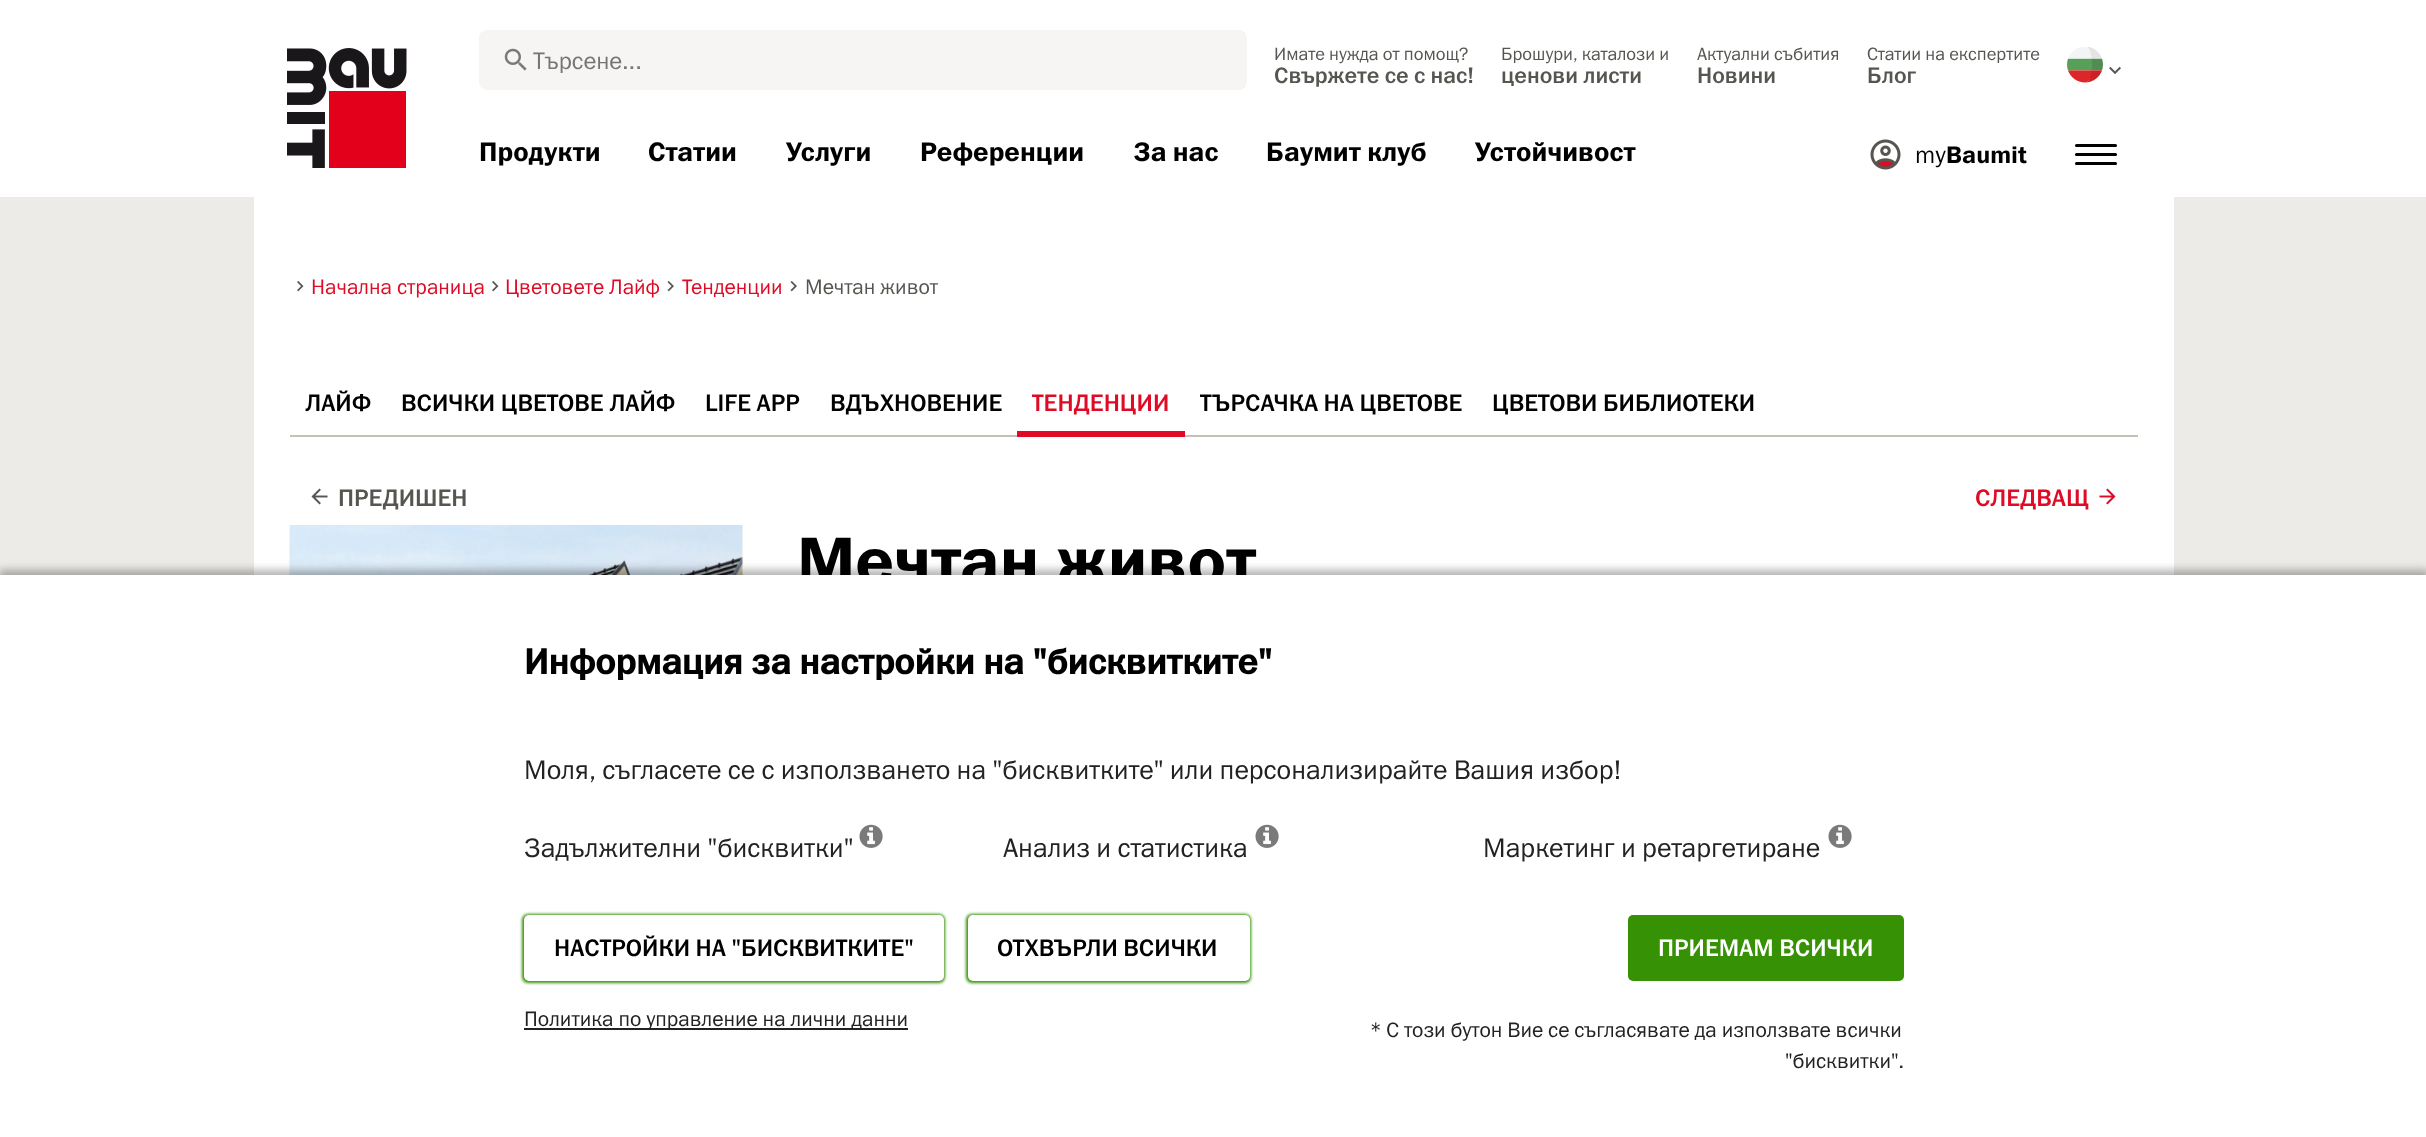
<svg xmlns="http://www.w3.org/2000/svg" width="2426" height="1137">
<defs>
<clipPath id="clip1"><rect x="533" y="45" width="699" height="30"/></clipPath>
</defs>
<rect width="100%" height="100%" fill="#ecebe7"/>
<rect width="2426" height="197" fill="#fff"/>
<image x="287" y="48" width="120" height="120" href="media/1.png"/>
<rect x="479" y="30" width="768" height="60" rx="8" fill="#f7f5f4"/>
<image x="504" y="48" width="23" height="23" href="media/2.png"/>
<g clip-path="url(#clip1)">
<text x="533" y="69" style="font-family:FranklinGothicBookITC;font-size:24px;fill:#757575">Търсене...</text>
</g>
<text x="1274" y="60" style="font-family:FranklinGothicBookITC;font-size:18px;fill:#575550">Имате нужда от помощ?</text>
<text x="1274" y="83" style="font-family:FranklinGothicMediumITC;font-size:22.5px;font-weight:500;fill:#575550">Свържете се с нас!</text>
<text x="1501" y="60" style="font-family:FranklinGothicBookITC;font-size:18px;fill:#575550">Брошури, каталози и</text>
<text x="1501" y="83" style="font-family:FranklinGothicMediumITC;font-size:22.5px;font-weight:500;fill:#575550">ценови листи</text>
<text x="1697" y="60" style="font-family:FranklinGothicBookITC;font-size:18px;fill:#575550">Актуални събития</text>
<text x="1697" y="83" style="font-family:FranklinGothicMediumITC;font-size:22.5px;font-weight:500;fill:#575550">Новини</text>
<text x="1867" y="60" style="font-family:FranklinGothicBookITC;font-size:18px;fill:#575550">Статии на експертите</text>
<text x="1867" y="83" style="font-family:FranklinGothicMediumITC;font-size:22.5px;font-weight:500;fill:#575550">Блог</text>
<image x="2067" y="47" width="36" height="36" href="media/3.png"/>
<image x="2109" y="66" width="12" height="8" href="media/4.png"/>
<text x="479" y="161" style="font-family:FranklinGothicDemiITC;font-size:27px;fill:#000">Продукти</text>
<text x="648" y="161" style="font-family:FranklinGothicDemiITC;font-size:27px;fill:#000">Статии</text>
<text x="786" y="161" style="font-family:FranklinGothicDemiITC;font-size:27px;fill:#000">Услуги</text>
<text x="920" y="161" style="font-family:FranklinGothicDemiITC;font-size:27px;fill:#000">Референции</text>
<text x="1133" y="161" style="font-family:FranklinGothicDemiITC;font-size:27px;fill:#000">За нас</text>
<text x="1266" y="161" style="font-family:FranklinGothicDemiITC;font-size:27px;fill:#000">Баумит клуб</text>
<text x="1475" y="161" style="font-family:FranklinGothicDemiITC;font-size:27px;fill:#000">Устойчивост</text>
<image x="1870" y="139" width="31" height="31" href="media/5.png"/>
<text x="1915" y="163" style="font-family:FranklinGothicBookITC;font-size:24px;fill:#000">my</text>
<text x="1946" y="163" style="font-family:FranklinGothicDemiITC;font-size:24px;fill:#000">Baumit</text>
<rect x="2075" y="144" width="42" height="3" rx="1.5" fill="#000"/>
<rect x="2075" y="153" width="42" height="3" rx="1.5" fill="#000"/>
<rect x="2075" y="162" width="42" height="3" rx="1.5" fill="#000"/>
<rect x="254" y="197" width="1920" height="378" fill="#fff"/>
<image x="297" y="281" width="7" height="11" href="media/6.png"/>
<text x="311" y="294" style="font-family:FranklinGothicBookITC;font-size:21px;fill:#df0a25">Начална страница</text>
<image x="492" y="281" width="7" height="11" href="media/6.png"/>
<text x="505" y="294" style="font-family:FranklinGothicBookITC;font-size:21px;fill:#df0a25">Цветовете Лайф</text>
<image x="667" y="281" width="7" height="11" href="media/7.png"/>
<text x="682" y="294" style="font-family:FranklinGothicBookITC;font-size:21px;fill:#df0a25">Тенденции</text>
<image x="790" y="281" width="7" height="11" href="media/7.png"/>
<text x="805" y="294" style="font-family:FranklinGothicBookITC;font-size:21px;fill:#575550">Мечтан живот</text>
<rect x="290" y="435" width="1848" height="2" fill="#c6c1b6"/>
<text x="305" y="411" style="font-family:FranklinGothicMediumITC;font-size:24px;font-weight:500;fill:#000">ЛАЙФ</text>
<text x="401" y="411" style="font-family:FranklinGothicMediumITC;font-size:24px;font-weight:500;fill:#000">ВСИЧКИ ЦВЕТОВЕ ЛАЙФ</text>
<text x="705" y="411" style="font-family:FranklinGothicMediumITC;font-size:24px;font-weight:500;fill:#000">LIFE APP</text>
<text x="830" y="411" style="font-family:FranklinGothicMediumITC;font-size:24px;font-weight:500;fill:#000">ВДЪХНОВЕНИЕ</text>
<rect x="1017" y="431" width="168" height="6" fill="#df0a25"/>
<text x="1032" y="411" style="font-family:FranklinGothicMediumITC;font-size:24px;font-weight:500;fill:#df0a25">ТЕНДЕНЦИИ</text>
<text x="1200" y="411" style="font-family:FranklinGothicMediumITC;font-size:24px;font-weight:500;fill:#000">ТЪРСАЧКА НА ЦВЕТОВЕ</text>
<text x="1492" y="411" style="font-family:FranklinGothicMediumITC;font-size:24px;font-weight:500;fill:#000">ЦВЕТОВИ БИБЛИОТЕКИ</text>
<image x="311" y="488" width="17" height="17" href="media/8.png"/>
<text x="338" y="506" style="font-family:FranklinGothicMediumITC;font-size:24px;font-weight:500;fill:#575550">ПРЕДИШЕН</text>
<text x="1975" y="506" style="font-family:FranklinGothicMediumITC;font-size:24px;font-weight:500;fill:#df0a25">СЛЕДВАЩ</text>
<image x="2099" y="488" width="17" height="17" href="media/9.png"/>
<image x="289" y="525" width="454" height="50" href="media/10.png"/>
<text x="797" y="584" style="font-family:FranklinGothicDemiITC;font-size:67.5px;fill:#000">Мечтан живот</text>
<rect x="-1" y="570" width="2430" height="566" fill="#0000004d" filter="blur(4px)"/>
<rect y="575" width="2426" height="562" fill="#fff"/>
<text x="524" y="674" style="font-family:FranklinGothicMediumITC;font-size:36px;font-weight:bold;fill:#000">Информация за настройки на "бисквитките"</text>
<text x="524" y="779" style="font-family:FranklinGothicBookITC;font-size:27px;fill:#222">Моля, съгласете се с използването на "бисквитките" или персонализирайте Вашия избор!</text>
<text x="524" y="857" style="font-family:FranklinGothicBookITC;font-size:27px;fill:#222">Задължителни "бисквитки"</text>
<image x="859" y="824" width="24" height="24" href="media/11.png"/>
<text x="1003" y="857" style="font-family:FranklinGothicBookITC;font-size:27px;fill:#222">Анализ и статистика</text>
<image x="1255" y="824" width="24" height="24" href="media/11.png"/>
<text x="1483" y="857" style="font-family:FranklinGothicBookITC;font-size:27px;fill:#222">Маркетинг и ретаргетиране</text>
<image x="1828" y="824" width="24" height="24" href="media/11.png"/>
<rect x="522" y="914" width="423" height="69" rx="6" fill="#369105" filter="blur(1.5px)"/>
<rect x="524" y="915" width="420" height="66" rx="5" fill="#fff"/>
<text x="554" y="956" style="font-family:FranklinGothicMediumITC;font-size:24px;font-weight:500;fill:#000">НАСТРОЙКИ НА "БИСКВИТКИТЕ"</text>
<rect x="966" y="914" width="285" height="69" rx="6" fill="#369105" filter="blur(1.5px)"/>
<rect x="968" y="915" width="282" height="66" rx="5" fill="#fff"/>
<text x="997" y="956" style="font-family:FranklinGothicMediumITC;font-size:24px;font-weight:500;fill:#000">ОТХВЪРЛИ ВСИЧКИ</text>
<rect x="524" y="1028" width="384" height="2" fill="#222"/>
<text x="524" y="1026" style="font-family:FranklinGothicBookITC;font-size:21px;fill:#222">Политика по управление на лични данни</text>
<rect x="1628" y="915" width="276" height="66" rx="5" fill="#369105"/>
<text x="1658" y="956" style="font-family:FranklinGothicMediumITC;font-size:24px;font-weight:500;fill:#fff">ПРИЕМАМ ВСИЧКИ</text>
<text x="1370" y="1037" style="font-family:FranklinGothicBookITC;font-size:21px;fill:#222">* С този бутон Вие се съгласявате да използвате всички</text>
<text x="1785" y="1068" style="font-family:FranklinGothicBookITC;font-size:21px;fill:#222">"бисквитки".</text>
</svg>
